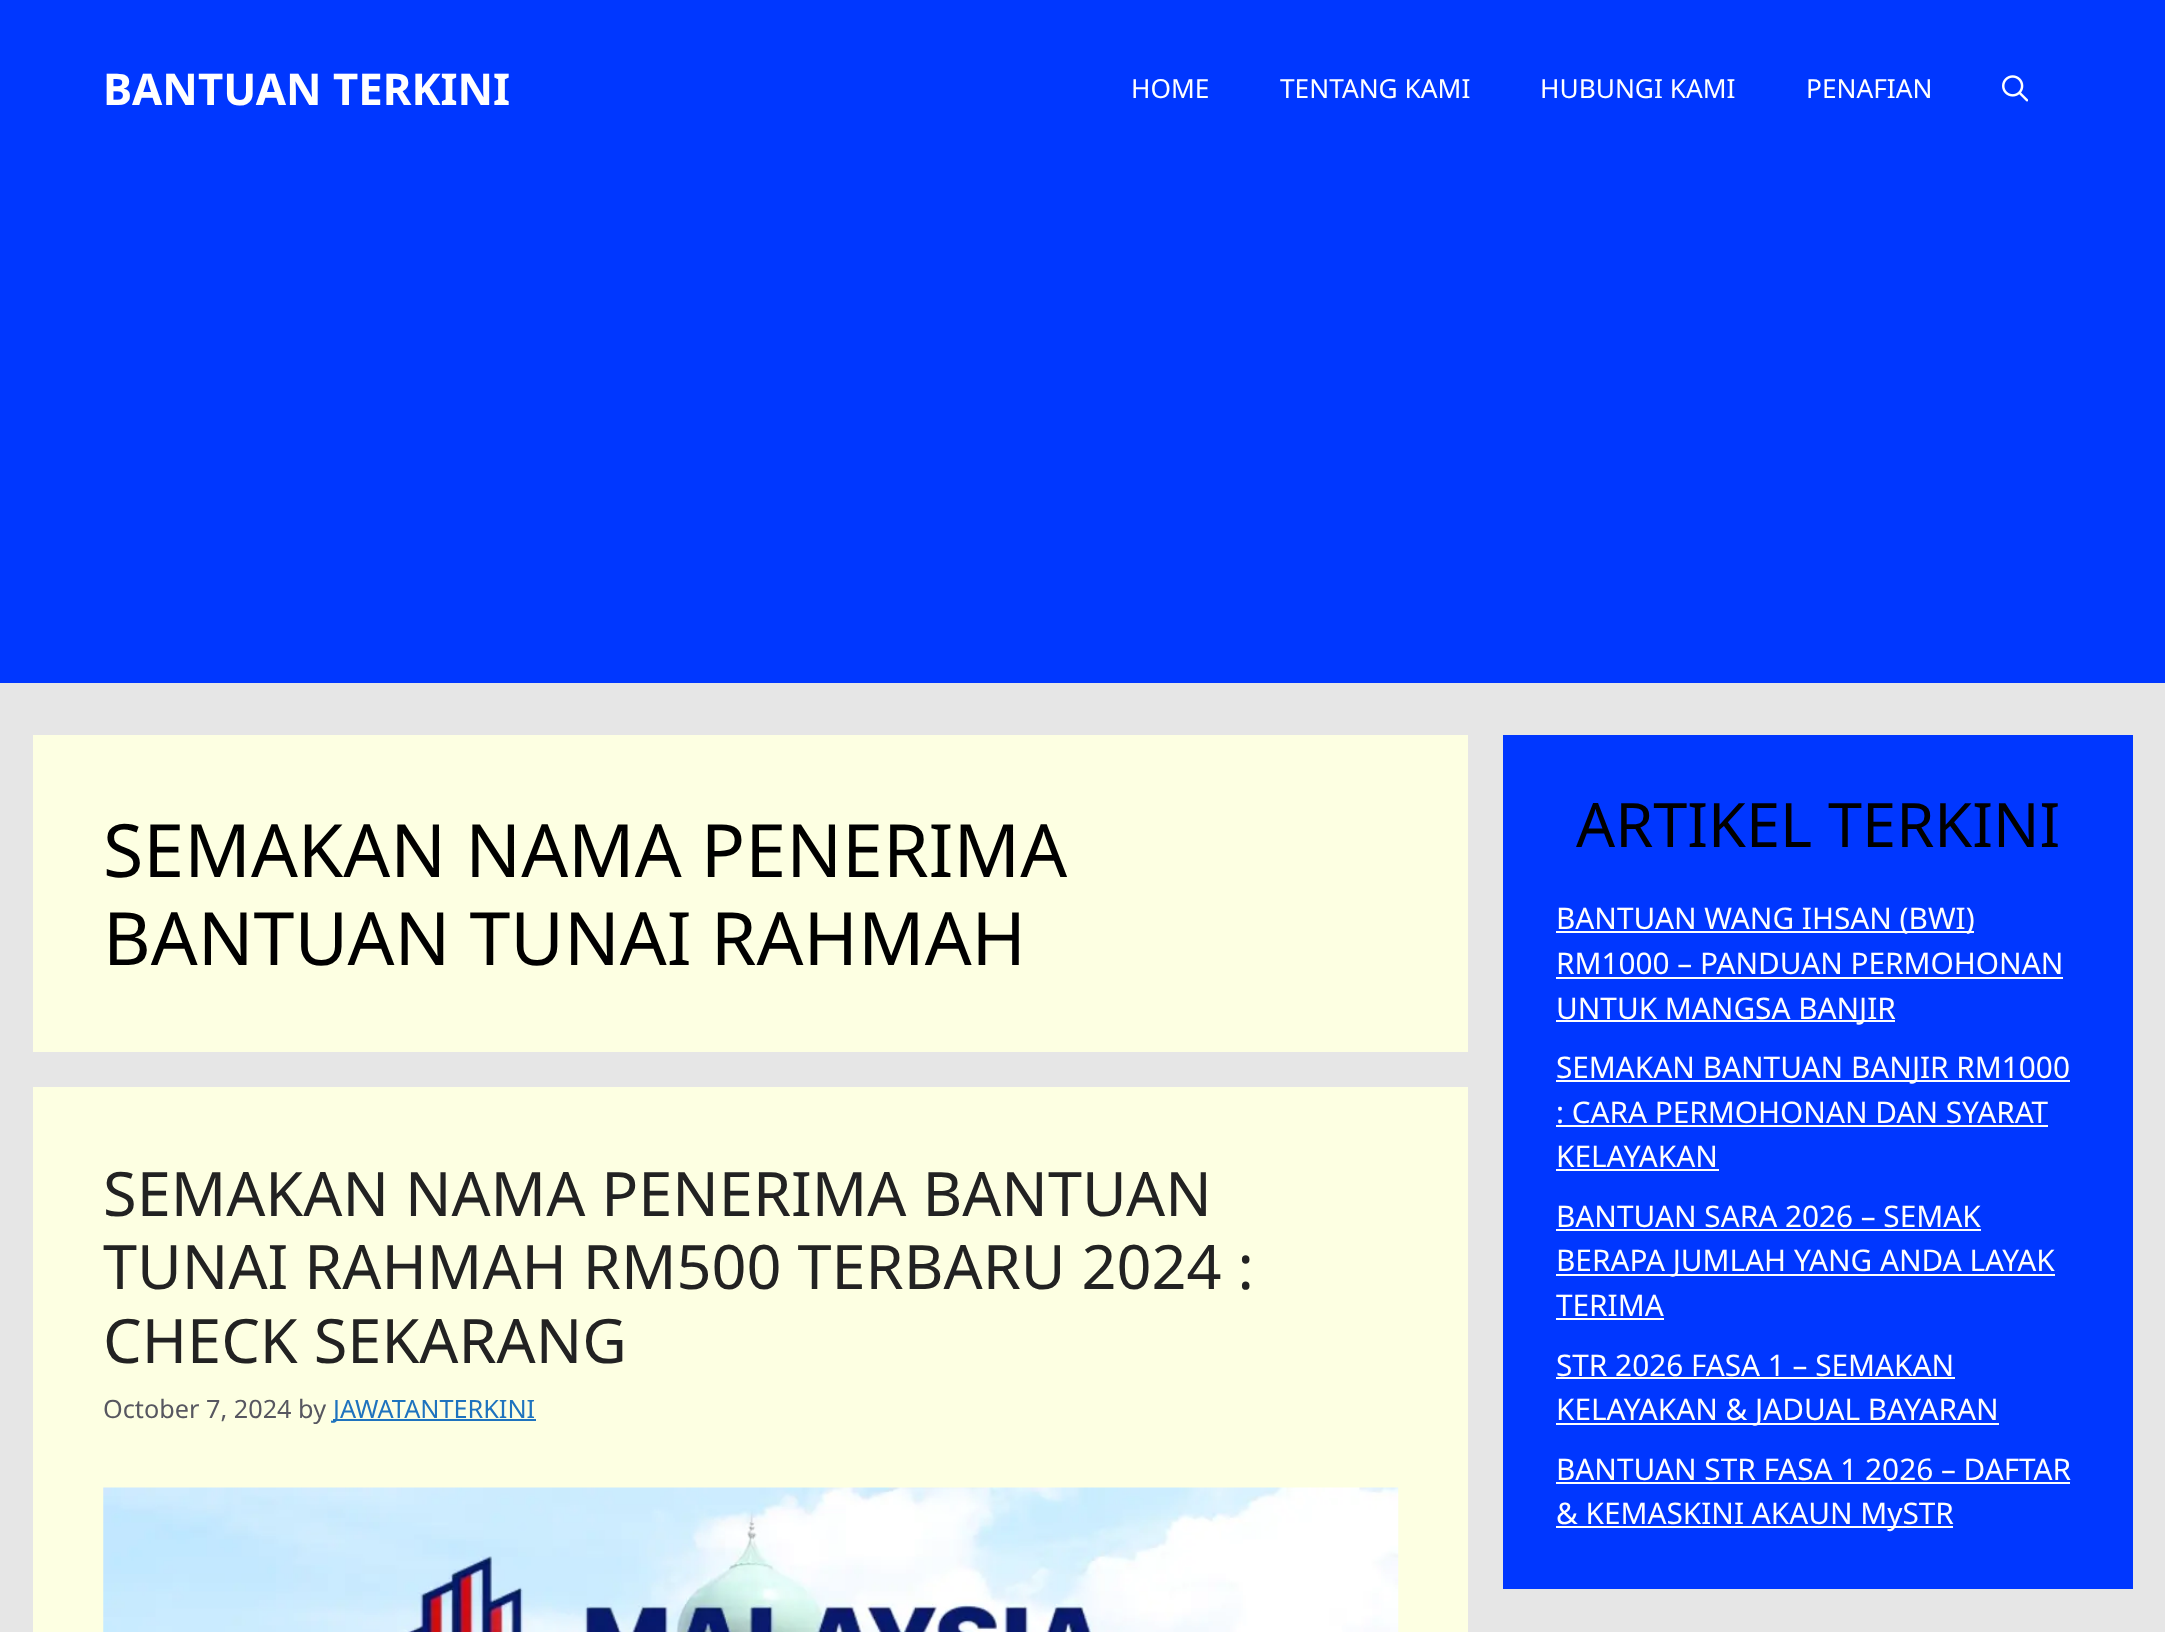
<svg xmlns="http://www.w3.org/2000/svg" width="2165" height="1632">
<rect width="100%" height="100%" fill="#e6e6e6"/>
<rect width="2165" height="683" fill="#0037ff"/>
<text x="103" y="105" style="font-family:Noto Sans;font-size:43.75px;font-weight:bold;fill:#fff">BANTUAN TERKINI</text>
<text x="1131" y="98" style="font-family:Noto Sans;font-size:26.25px;fill:#fff">HOME</text>
<text x="1280" y="98" style="font-family:Noto Sans;font-size:26.25px;fill:#fff">TENTANG KAMI</text>
<text x="1540" y="98" style="font-family:Noto Sans;font-size:26.25px;fill:#fff">HUBUNGI KAMI</text>
<text x="1806" y="98" style="font-family:Noto Sans;font-size:26.25px;fill:#fff">PENAFIAN</text>
<image x="2002" y="75" width="26" height="27" href="media/1.png"/>
<rect x="33" y="735" width="1435" height="317" fill="#fdffe2"/>
<text x="103" y="877" style="font-family:Noto Sans;font-size:73.5px;fill:#000">SEMAKAN NAMA PENERIMA</text>
<text x="103" y="965" style="font-family:Noto Sans;font-size:73.5px;fill:#000">BANTUAN TUNAI RAHMAH</text>
<rect x="33" y="1087" width="1435" height="545" fill="#fdffe2"/>
<text x="103" y="1216" style="font-family:Noto Sans;font-size:61.25px;fill:#222">SEMAKAN NAMA PENERIMA BANTUAN</text>
<text x="103" y="1289" style="font-family:Noto Sans;font-size:61.25px;fill:#222">TUNAI RAHMAH RM500 TERBARU 2024 :</text>
<text x="103" y="1363" style="font-family:Noto Sans;font-size:61.25px;fill:#222">CHECK SEKARANG</text>
<text x="103" y="1418" style="font-family:Noto Sans;font-size:25.25px;fill:#575760">October 7, 2024 by</text>
<rect x="333" y="1419" width="203" height="2" fill="#1e73be"/>
<text x="333" y="1418" style="font-family:Noto Sans;font-size:25.25px;fill:#1e73be">JAWATANTERKINI</text>
<image x="103" y="1487" width="1296" height="145" href="media/2.png"/>
<rect x="1503" y="735" width="630" height="854" fill="#0037ff"/>
<text x="1576" y="847" style="font-family:Noto Sans;font-size:61.25px;fill:#000">ARTIKEL TERKINI</text>
<rect x="1556" y="931" width="418" height="2" fill="#fff"/>
<text x="1556" y="929" style="font-family:Noto Sans;font-size:29.75px;fill:#fff">BANTUAN WANG IHSAN (BWI)</text>
<text x="1556" y="974" style="font-family:Noto Sans;font-size:29.75px;fill:#fff">RM1000 – PANDUAN PERMOHONAN</text>
<rect x="1556" y="977" width="507" height="2" fill="#fff"/>
<rect x="1556" y="1020" width="339" height="2" fill="#fff"/>
<text x="1556" y="1019" style="font-family:Noto Sans;font-size:29.75px;fill:#fff">UNTUK MANGSA BANJIR</text>
<rect x="1556" y="1080" width="514" height="2" fill="#fff"/>
<text x="1556" y="1078" style="font-family:Noto Sans;font-size:29.75px;fill:#fff">SEMAKAN BANTUAN BANJIR RM1000</text>
<text x="1556" y="1123" style="font-family:Noto Sans;font-size:29.75px;fill:#fff">: CARA PERMOHONAN DAN SYARAT</text>
<rect x="1556" y="1125" width="492" height="2" fill="#fff"/>
<text x="1556" y="1167" style="font-family:Noto Sans;font-size:29.75px;fill:#fff">KELAYAKAN</text>
<rect x="1556" y="1169" width="163" height="2" fill="#fff"/>
<text x="1556" y="1227" style="font-family:Noto Sans;font-size:29.75px;fill:#fff">BANTUAN SARA 2026 – SEMAK</text>
<rect x="1556" y="1229" width="425" height="2" fill="#fff"/>
<rect x="1556" y="1274" width="499" height="2" fill="#fff"/>
<text x="1556" y="1271" style="font-family:Noto Sans;font-size:29.75px;fill:#fff">BERAPA JUMLAH YANG ANDA LAYAK</text>
<text x="1556" y="1316" style="font-family:Noto Sans;font-size:29.75px;fill:#fff">TERIMA</text>
<rect x="1556" y="1318" width="108" height="2" fill="#fff"/>
<text x="1556" y="1376" style="font-family:Noto Sans;font-size:29.75px;fill:#fff">STR 2026 FASA 1 – SEMAKAN</text>
<rect x="1556" y="1377" width="399" height="2" fill="#fff"/>
<rect x="1556" y="1423" width="443" height="2" fill="#fff"/>
<text x="1556" y="1420" style="font-family:Noto Sans;font-size:29.75px;fill:#fff">KELAYAKAN &amp; JADUAL BAYARAN</text>
<text x="1556" y="1480" style="font-family:Noto Sans;font-size:29.75px;fill:#fff">BANTUAN STR FASA 1 2026 – DAFTAR</text>
<rect x="1556" y="1482" width="514" height="2" fill="#fff"/>
<rect x="1556" y="1526" width="397" height="2" fill="#fff"/>
<text x="1556" y="1524" style="font-family:Noto Sans;font-size:29.75px;fill:#fff">&amp; KEMASKINI AKAUN MySTR</text>
</svg>
